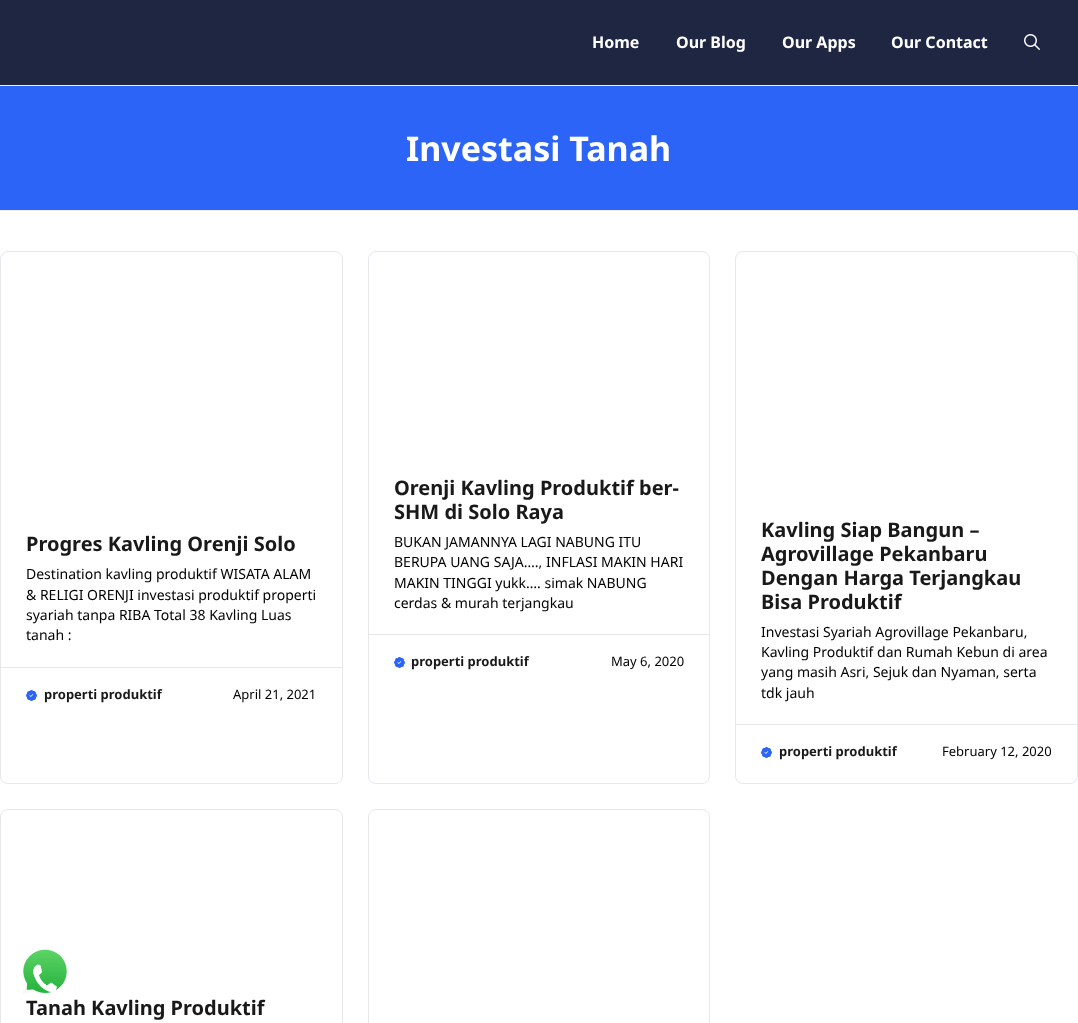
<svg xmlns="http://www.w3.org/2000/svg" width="1078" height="1023">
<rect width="100%" height="100%" fill="#fff"/>
<rect width="1078" height="85" fill="#1f2641"/>
<rect y="85" width="1078" height="1" fill="#f1f1f1"/>
<text x="592" y="48" style="font-family:Noto Sans;font-size:16px;font-weight:bold;fill:#fff">Home</text>
<text x="676" y="48" style="font-family:Noto Sans;font-size:16px;font-weight:bold;fill:#fff">Our Blog</text>
<text x="782" y="48" style="font-family:Noto Sans;font-size:16px;font-weight:bold;fill:#fff">Our Apps</text>
<text x="891" y="48" style="font-family:Noto Sans;font-size:16px;font-weight:bold;fill:#fff">Our Contact</text>
<image x="1024" y="34" width="16" height="16" href="media/1.png"/>
<rect y="86" width="1078" height="124" fill="#2b64f6"/>
<rect y="210" width="1078" height="1" fill="#f1f1f1"/>
<text x="406" y="161" style="font-family:Noto Sans;font-size:34px;font-weight:bold;fill:#fff">Investasi Tanah</text>
<rect x="0.5" y="251.5" width="342" height="532" rx="7.5" fill="none" stroke="#e5e7eb"/>
<text x="26" y="551" style="font-family:Noto Sans;font-size:20px;font-weight:bold;fill:#1a1919">Progres Kavling Orenji Solo</text>
<text x="26" y="579" style="font-family:Noto Sans;font-size:14px;fill:#000">Destination kavling produktif WISATA ALAM</text>
<text x="26" y="600" style="font-family:Noto Sans;font-size:14px;fill:#000">&amp; RELIGI ORENJI investasi produktif properti</text>
<text x="26" y="620" style="font-family:Noto Sans;font-size:14px;fill:#000">syariah tanpa RIBA Total 38 Kavling Luas</text>
<text x="26" y="640" style="font-family:Noto Sans;font-size:14px;fill:#000">tanah :</text>
<rect x="1" y="667" width="341" height="1" fill="#e5e7eb"/>
<image x="26" y="690" width="11" height="11" href="media/2.png"/>
<text x="44" y="699" style="font-family:Noto Sans;font-size:13px;font-weight:bold;fill:#1a1919">properti produktif</text>
<text x="233" y="699" style="font-family:Noto Sans;font-size:13px;fill:#000">April 21, 2021</text>
<rect x="368.5" y="251.5" width="341" height="532" rx="7.5" fill="none" stroke="#e5e7eb"/>
<text x="394" y="495" style="font-family:Noto Sans;font-size:20px;font-weight:bold;fill:#1a1919">Orenji Kavling Produktif ber-</text>
<text x="394" y="519" style="font-family:Noto Sans;font-size:20px;font-weight:bold;fill:#1a1919">SHM di Solo Raya</text>
<text x="394" y="547" style="font-family:Noto Sans;font-size:14px;fill:#000">BUKAN JAMANNYA LAGI NABUNG ITU</text>
<text x="394" y="567" style="font-family:Noto Sans;font-size:14px;fill:#000">BERUPA UANG SAJA…., INFLASI MAKIN HARI</text>
<text x="394" y="588" style="font-family:Noto Sans;font-size:14px;fill:#000">MAKIN TINGGI yukk…. simak NABUNG</text>
<text x="394" y="608" style="font-family:Noto Sans;font-size:14px;fill:#000">cerdas &amp; murah terjangkau</text>
<rect x="369" y="634" width="340" height="1" fill="#e5e7eb"/>
<image x="394" y="657" width="11" height="11" href="media/2.png"/>
<text x="411" y="666" style="font-family:Noto Sans;font-size:13px;font-weight:bold;fill:#1a1919">properti produktif</text>
<text x="611" y="666" style="font-family:Noto Sans;font-size:13px;fill:#000">May 6, 2020</text>
<rect x="735.5" y="251.5" width="342" height="532" rx="7.5" fill="none" stroke="#e5e7eb"/>
<text x="761" y="537" style="font-family:Noto Sans;font-size:20px;font-weight:bold;fill:#1a1919">Kavling Siap Bangun –</text>
<text x="761" y="561" style="font-family:Noto Sans;font-size:20px;font-weight:bold;fill:#1a1919">Agrovillage Pekanbaru</text>
<text x="761" y="585" style="font-family:Noto Sans;font-size:20px;font-weight:bold;fill:#1a1919">Dengan Harga Terjangkau</text>
<text x="761" y="609" style="font-family:Noto Sans;font-size:20px;font-weight:bold;fill:#1a1919">Bisa Produktif</text>
<text x="761" y="637" style="font-family:Noto Sans;font-size:14px;fill:#000">Investasi Syariah Agrovillage Pekanbaru,</text>
<text x="761" y="657" style="font-family:Noto Sans;font-size:14px;fill:#000">Kavling Produktif dan Rumah Kebun di area</text>
<text x="761" y="677" style="font-family:Noto Sans;font-size:14px;fill:#000">yang masih Asri, Sejuk dan Nyaman, serta</text>
<text x="761" y="698" style="font-family:Noto Sans;font-size:14px;fill:#000">tdk jauh</text>
<rect x="736" y="724" width="341" height="1" fill="#e5e7eb"/>
<image x="761" y="747" width="11" height="11" href="media/2.png"/>
<text x="779" y="756" style="font-family:Noto Sans;font-size:13px;font-weight:bold;fill:#1a1919">properti produktif</text>
<text x="942" y="756" style="font-family:Noto Sans;font-size:13px;fill:#000">February 12, 2020</text>
<rect x="0.5" y="809.5" width="342" height="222" rx="7.5" fill="none" stroke="#e5e7eb"/>
<text x="26" y="1015" style="font-family:Noto Sans;font-size:20px;font-weight:bold;fill:#1a1919">Tanah Kavling Produktif</text>
<rect x="368.5" y="809.5" width="341" height="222" rx="7.5" fill="none" stroke="#e5e7eb"/>
<image x="22" y="949" width="45" height="45" href="media/3.png"/>
</svg>
